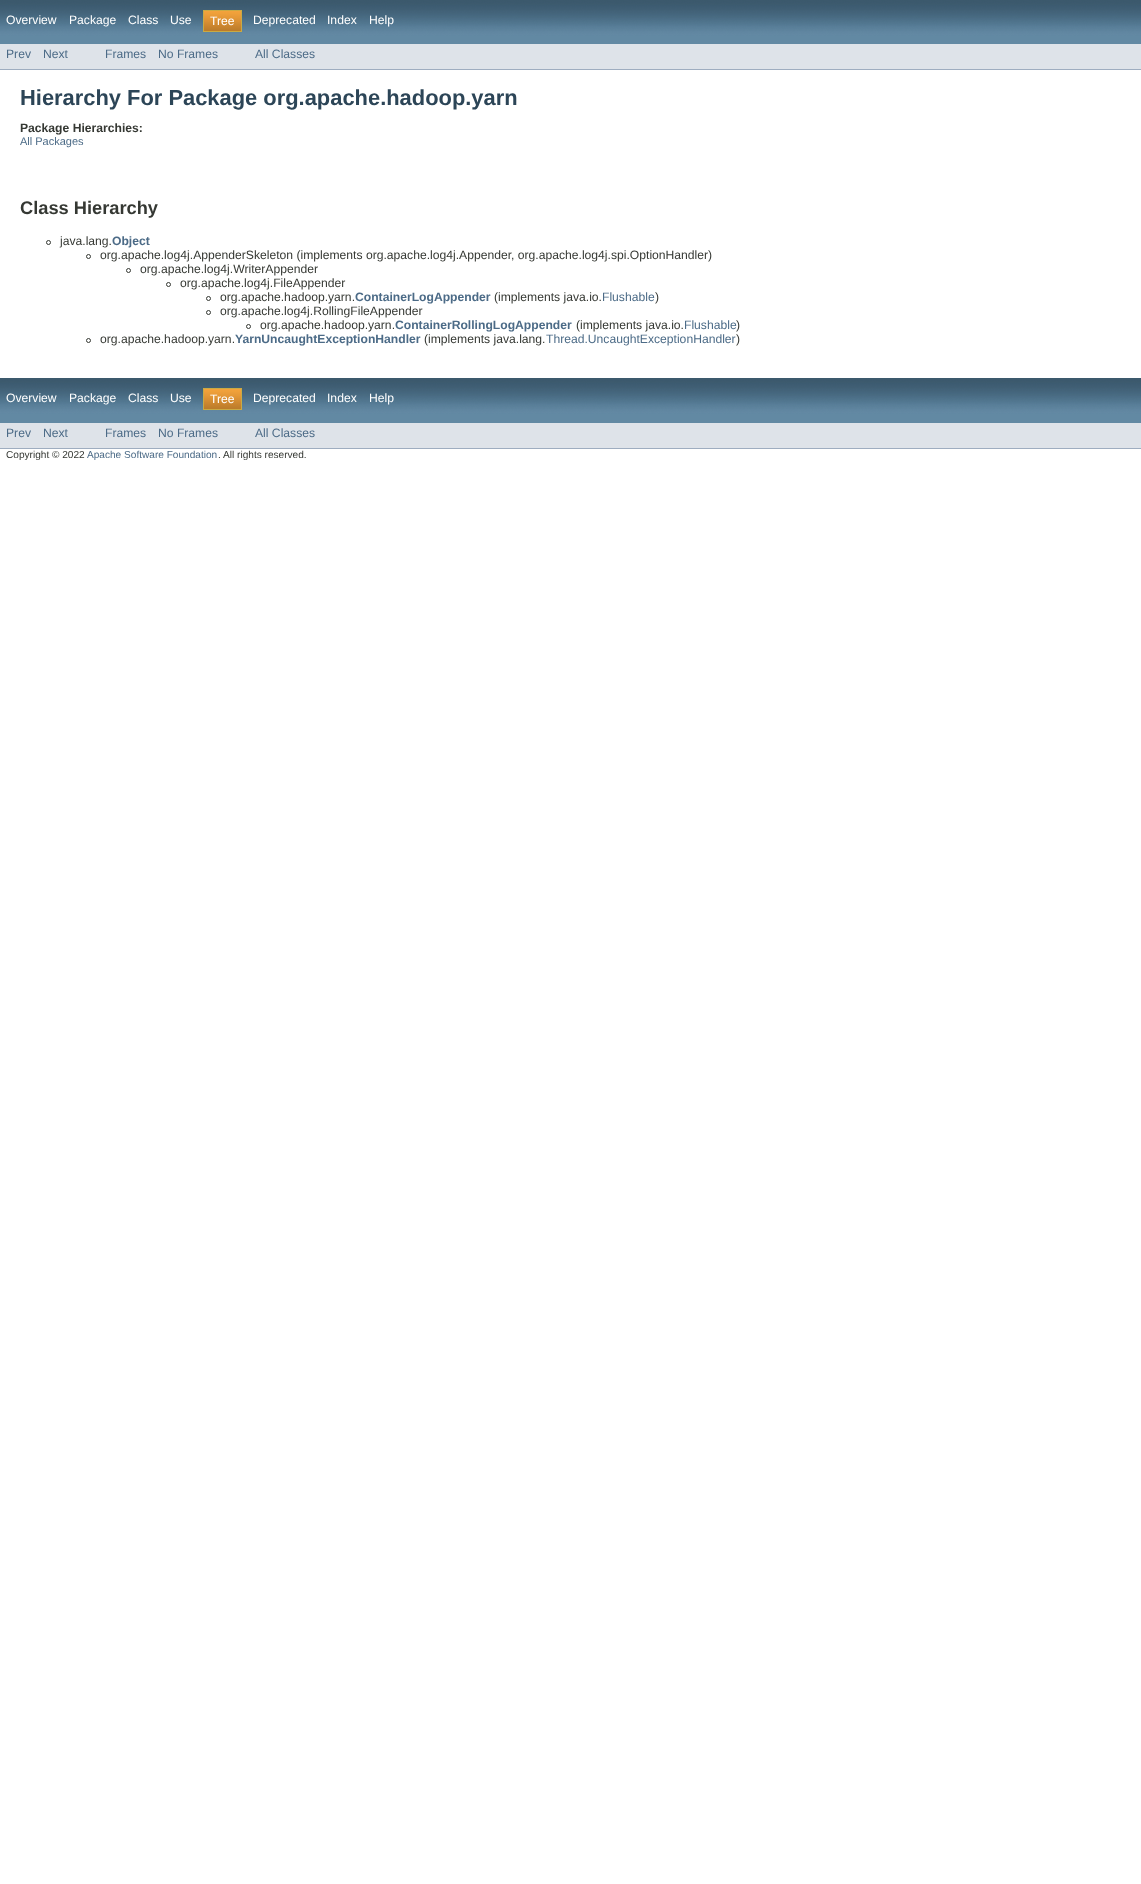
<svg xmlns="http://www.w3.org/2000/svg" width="1141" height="1884">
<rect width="100%" height="100%" fill="#fff"/>
<image x="0" y="0" width="1141" height="44" href="media/1.png"/>
<text x="6" y="24" style="font-family:Liberation Sans;font-size:12.15px;fill:#fff">Overview</text>
<text x="69" y="24" style="font-family:Liberation Sans;font-size:12.15px;fill:#fff">Package</text>
<text x="128" y="24" style="font-family:Liberation Sans;font-size:12.15px;fill:#fff">Class</text>
<text x="170" y="24" style="font-family:Liberation Sans;font-size:12.15px;fill:#fff">Use</text>
<image x="204" y="11" width="37" height="20" href="media/2.png"/>
<rect x="203.5" y="10.5" width="38" height="21" fill="none" stroke="#c9aa44"/>
<text x="210" y="25" style="font-family:Liberation Sans;font-size:12.15px;fill:#fff">Tree</text>
<text x="253" y="24" style="font-family:Liberation Sans;font-size:12.15px;fill:#fff">Deprecated</text>
<text x="327" y="24" style="font-family:Liberation Sans;font-size:12.15px;fill:#fff">Index</text>
<text x="369" y="24" style="font-family:Liberation Sans;font-size:12.15px;fill:#fff">Help</text>
<rect y="44" width="1141" height="25" fill="#dee3e9"/>
<rect y="69" width="1141" height="1" fill="#9eadc0"/>
<text x="6" y="58" style="font-family:Liberation Sans;font-size:12.15px;fill:#4c6b87">Prev</text>
<text x="43" y="58" style="font-family:Liberation Sans;font-size:12.15px;fill:#4c6b87">Next</text>
<text x="105" y="58" style="font-family:Liberation Sans;font-size:12.15px;fill:#4c6b87">Frames</text>
<text x="158" y="58" style="font-family:Liberation Sans;font-size:12.15px;fill:#4c6b87">No Frames</text>
<text x="255" y="58" style="font-family:Liberation Sans;font-size:12.15px;fill:#4c6b87">All Classes</text>
<text x="20" y="105" style="font-family:Liberation Sans;font-size:21.9px;font-weight:bold;fill:#2c4557">Hierarchy For Package org.apache.hadoop.yarn</text>
<text x="20" y="132" style="font-family:Liberation Sans;font-size:12.15px;font-weight:bold;fill:#353833">Package Hierarchies:</text>
<text x="20" y="145" style="font-family:Liberation Sans;font-size:11px;fill:#4c6b87">All Packages</text>
<text x="20" y="214" style="font-family:Liberation Sans;font-size:18.25px;font-weight:bold;fill:#353833">Class Hierarchy</text>
<circle cx="48.5" cy="242.5" r="2" fill="none" stroke="#353833"/>
<text x="60" y="245" style="font-family:Liberation Sans;font-size:12.15px;fill:#353833">java.lang.</text>
<text x="112" y="245" style="font-family:Liberation Sans;font-size:12.15px;font-weight:bold;fill:#4c6b87">Object</text>
<circle cx="88.5" cy="256.5" r="2" fill="none" stroke="#353833"/>
<text x="100" y="259" style="font-family:Liberation Sans;font-size:12.15px;fill:#353833">org.apache.log4j.AppenderSkeleton (implements org.apache.log4j.Appender, org.apache.log4j.spi.OptionHandler)</text>
<circle cx="128.5" cy="270.5" r="2" fill="none" stroke="#353833"/>
<text x="140" y="273" style="font-family:Liberation Sans;font-size:12.15px;fill:#353833">org.apache.log4j.WriterAppender</text>
<circle cx="168.5" cy="284.5" r="2" fill="none" stroke="#353833"/>
<text x="180" y="287" style="font-family:Liberation Sans;font-size:12.15px;fill:#353833">org.apache.log4j.FileAppender</text>
<circle cx="208.5" cy="298.5" r="2" fill="none" stroke="#353833"/>
<text x="220" y="301" style="font-family:Liberation Sans;font-size:12.15px;fill:#353833">org.apache.hadoop.yarn.</text>
<text x="355" y="301" style="font-family:Liberation Sans;font-size:12.15px;font-weight:bold;fill:#4c6b87">ContainerLogAppender</text>
<text x="494" y="301" style="font-family:Liberation Sans;font-size:12.15px;fill:#353833">(implements java.io.</text>
<text x="602" y="301" style="font-family:Liberation Sans;font-size:12.15px;fill:#4c6b87">Flushable</text>
<text x="655" y="301" style="font-family:Liberation Sans;font-size:12.15px;fill:#353833">)</text>
<circle cx="208.5" cy="312.5" r="2" fill="none" stroke="#353833"/>
<text x="220" y="315" style="font-family:Liberation Sans;font-size:12.15px;fill:#353833">org.apache.log4j.RollingFileAppender</text>
<circle cx="248.5" cy="326.5" r="2" fill="none" stroke="#353833"/>
<text x="260" y="329" style="font-family:Liberation Sans;font-size:12.15px;fill:#353833">org.apache.hadoop.yarn.</text>
<text x="395" y="329" style="font-family:Liberation Sans;font-size:12.15px;font-weight:bold;fill:#4c6b87">ContainerRollingLogAppender</text>
<text x="576" y="329" style="font-family:Liberation Sans;font-size:12.15px;fill:#353833">(implements java.io.</text>
<text x="684" y="329" style="font-family:Liberation Sans;font-size:12.15px;fill:#4c6b87">Flushable</text>
<text x="736" y="329" style="font-family:Liberation Sans;font-size:12.15px;fill:#353833">)</text>
<circle cx="88.5" cy="340.5" r="2" fill="none" stroke="#353833"/>
<text x="100" y="343" style="font-family:Liberation Sans;font-size:12.15px;fill:#353833">org.apache.hadoop.yarn.</text>
<text x="235" y="343" style="font-family:Liberation Sans;font-size:12.15px;font-weight:bold;fill:#4c6b87">YarnUncaughtExceptionHandler</text>
<text x="424" y="343" style="font-family:Liberation Sans;font-size:12.15px;fill:#353833">(implements java.lang.</text>
<text x="546" y="343" style="font-family:Liberation Sans;font-size:12.15px;fill:#4c6b87">Thread.UncaughtExceptionHandler</text>
<text x="736" y="343" style="font-family:Liberation Sans;font-size:12.15px;fill:#353833">)</text>
<image x="0" y="378" width="1141" height="45" href="media/3.png"/>
<text x="6" y="402" style="font-family:Liberation Sans;font-size:12.15px;fill:#fff">Overview</text>
<text x="69" y="402" style="font-family:Liberation Sans;font-size:12.15px;fill:#fff">Package</text>
<text x="128" y="402" style="font-family:Liberation Sans;font-size:12.15px;fill:#fff">Class</text>
<text x="170" y="402" style="font-family:Liberation Sans;font-size:12.15px;fill:#fff">Use</text>
<image x="204" y="389" width="37" height="20" href="media/2.png"/>
<rect x="203.5" y="388.5" width="38" height="21" fill="none" stroke="#c9aa44"/>
<text x="210" y="403" style="font-family:Liberation Sans;font-size:12.15px;fill:#fff">Tree</text>
<text x="253" y="402" style="font-family:Liberation Sans;font-size:12.15px;fill:#fff">Deprecated</text>
<text x="327" y="402" style="font-family:Liberation Sans;font-size:12.15px;fill:#fff">Index</text>
<text x="369" y="402" style="font-family:Liberation Sans;font-size:12.15px;fill:#fff">Help</text>
<rect y="423" width="1141" height="25" fill="#dee3e9"/>
<rect y="448" width="1141" height="1" fill="#9eadc0"/>
<text x="6" y="437" style="font-family:Liberation Sans;font-size:12.15px;fill:#4c6b87">Prev</text>
<text x="43" y="437" style="font-family:Liberation Sans;font-size:12.15px;fill:#4c6b87">Next</text>
<text x="105" y="437" style="font-family:Liberation Sans;font-size:12.15px;fill:#4c6b87">Frames</text>
<text x="158" y="437" style="font-family:Liberation Sans;font-size:12.15px;fill:#4c6b87">No Frames</text>
<text x="255" y="437" style="font-family:Liberation Sans;font-size:12.15px;fill:#4c6b87">All Classes</text>
<text x="6" y="458" style="font-family:Liberation Sans;font-size:10.1px;fill:#353833">Copyright © 2022</text>
<text x="87" y="458" style="font-family:Liberation Sans;font-size:10.1px;fill:#4c6b87">Apache Software Foundation</text>
<text x="218" y="458" style="font-family:Liberation Sans;font-size:10.1px;fill:#353833">. All rights reserved.</text>
</svg>
